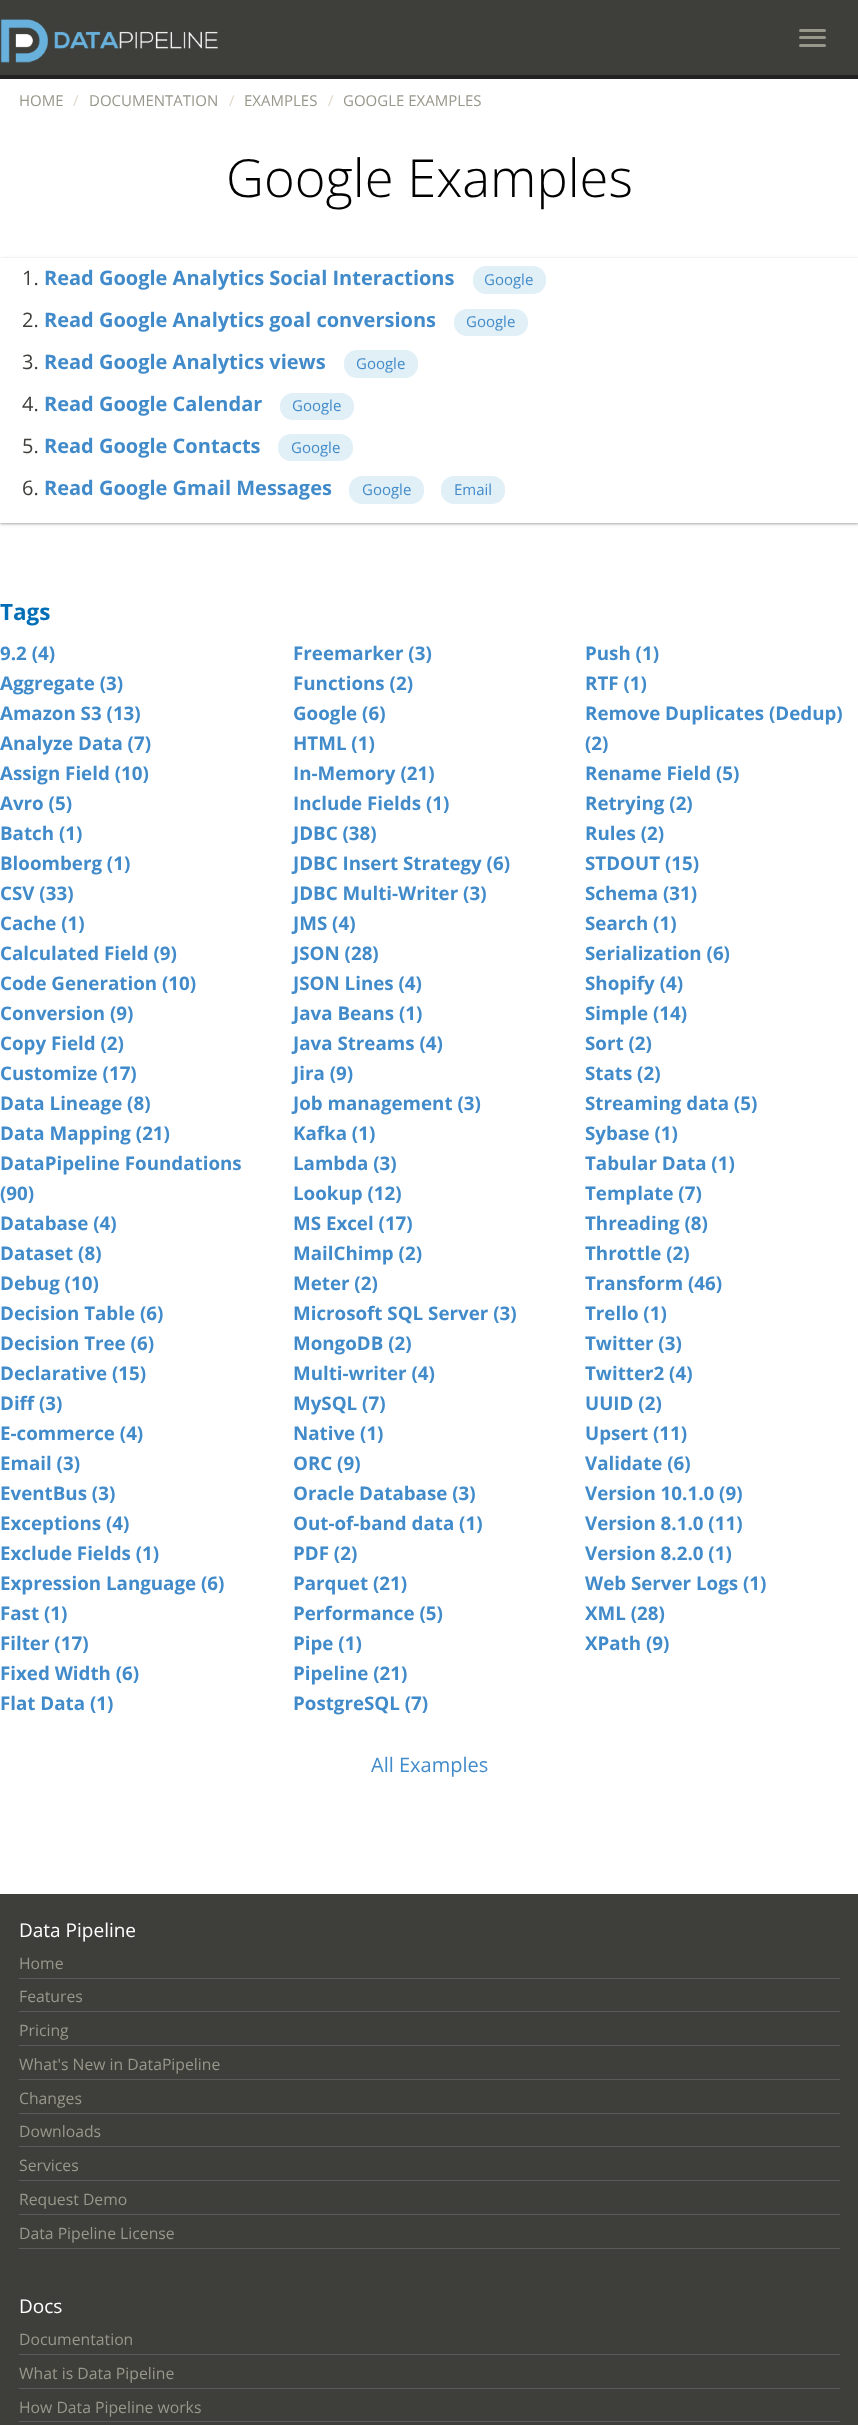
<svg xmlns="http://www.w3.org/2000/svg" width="858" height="2425">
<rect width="100%" height="100%" fill="#222"/>
<rect width="858" height="75" fill="#3e3f3a"/>
<image x="0" y="19" width="218" height="44" href="media/1.png"/>
<rect x="799" y="29" width="27" height="3" rx="1.5" fill="#98978b"/>
<rect x="799" y="36" width="27" height="3" rx="1.5" fill="#98978b"/>
<rect x="799" y="44" width="27" height="3" rx="1.5" fill="#98978b"/>
<rect y="79" width="858" height="1815" fill="#fff"/>
<text x="19" y="106" style="font-family:Open Sans;font-size:15px;fill:#98978b">HOME</text>
<text x="73" y="106" style="font-family:Open Sans;font-size:15px;fill:#dfd7ca">/</text>
<text x="89" y="106" style="font-family:Open Sans;font-size:15px;fill:#98978b">DOCUMENTATION</text>
<text x="229" y="106" style="font-family:Open Sans;font-size:15px;fill:#dfd7ca">/</text>
<text x="244" y="106" style="font-family:Open Sans;font-size:15px;fill:#98978b">EXAMPLES</text>
<text x="328" y="106" style="font-family:Open Sans;font-size:15px;fill:#dfd7ca">/</text>
<text x="343" y="106" style="font-family:Open Sans;font-size:15px;fill:#98978b">GOOGLE EXAMPLES</text>
<text x="226" y="197" style="font-family:Open Sans;font-size:52.5px;font-weight:300;fill:#000">Google Examples</text>
<rect y="259" width="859" height="265" fill="#0000003d" filter="blur(1px)"/>
<rect y="259" width="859" height="265" fill="#0000001f" filter="blur(2px)"/>
<rect y="258" width="858" height="265" fill="#fff"/>
<text x="22" y="285" style="font-family:Open Sans;font-size:20px;fill:#3e3f3a">1.</text>
<text x="44" y="285" style="font-family:Open Sans;font-size:20px;font-weight:bold;fill:#428bca">Read Google Analytics Social Interactions</text>
<rect x="473" y="266" width="73" height="28" rx="13" fill="#e1eff6"/>
<text x="484" y="285" style="font-family:Open Sans;font-size:15px;fill:#428bca">Google</text>
<text x="22" y="327" style="font-family:Open Sans;font-size:20px;fill:#3e3f3a">2.</text>
<text x="44" y="327" style="font-family:Open Sans;font-size:20px;font-weight:bold;fill:#428bca">Read Google Analytics goal conversions</text>
<rect x="454" y="309" width="74" height="27" rx="13" fill="#e1eff6"/>
<text x="466" y="327" style="font-family:Open Sans;font-size:15px;fill:#428bca">Google</text>
<text x="22" y="369" style="font-family:Open Sans;font-size:20px;fill:#3e3f3a">3.</text>
<text x="44" y="369" style="font-family:Open Sans;font-size:20px;font-weight:bold;fill:#428bca">Read Google Analytics views</text>
<rect x="344" y="350" width="74" height="28" rx="13" fill="#e1eff6"/>
<text x="356" y="369" style="font-family:Open Sans;font-size:15px;fill:#428bca">Google</text>
<text x="22" y="411" style="font-family:Open Sans;font-size:20px;fill:#3e3f3a">4.</text>
<text x="44" y="411" style="font-family:Open Sans;font-size:20px;font-weight:bold;fill:#428bca">Read Google Calendar</text>
<rect x="280" y="393" width="74" height="27" rx="13" fill="#e1eff6"/>
<text x="292" y="411" style="font-family:Open Sans;font-size:15px;fill:#428bca">Google</text>
<text x="22" y="453" style="font-family:Open Sans;font-size:20px;fill:#3e3f3a">5.</text>
<text x="44" y="453" style="font-family:Open Sans;font-size:20px;font-weight:bold;fill:#428bca">Read Google Contacts</text>
<rect x="278" y="434" width="75" height="27" rx="13" fill="#e1eff6"/>
<text x="291" y="453" style="font-family:Open Sans;font-size:15px;fill:#428bca">Google</text>
<text x="22" y="495" style="font-family:Open Sans;font-size:20px;fill:#3e3f3a">6.</text>
<text x="44" y="495" style="font-family:Open Sans;font-size:20px;font-weight:bold;fill:#428bca">Read Google Gmail Messages</text>
<rect x="349" y="476" width="75" height="28" rx="13" fill="#e1eff6"/>
<text x="362" y="495" style="font-family:Open Sans;font-size:15px;fill:#428bca">Google</text>
<rect x="441" y="476" width="64" height="28" rx="13" fill="#e1eff6"/>
<text x="454" y="495" style="font-family:Open Sans;font-size:15px;fill:#428bca">Email</text>
<text x="0" y="620" style="font-family:Open Sans;font-size:22.5px;font-weight:bold;fill:#006eb6">Tags</text>
<text x="0" y="660" style="font-family:Open Sans;font-size:18.75px;font-weight:bold;fill:#428bca">9.2 (4)</text>
<text x="293" y="660" style="font-family:Open Sans;font-size:18.75px;font-weight:bold;fill:#428bca">Freemarker (3)</text>
<text x="585" y="660" style="font-family:Open Sans;font-size:18.75px;font-weight:bold;fill:#428bca">Push (1)</text>
<text x="0" y="690" style="font-family:Open Sans;font-size:18.75px;font-weight:bold;fill:#428bca">Aggregate (3)</text>
<text x="293" y="690" style="font-family:Open Sans;font-size:18.75px;font-weight:bold;fill:#428bca">Functions (2)</text>
<text x="585" y="690" style="font-family:Open Sans;font-size:18.75px;font-weight:bold;fill:#428bca">RTF (1)</text>
<text x="0" y="720" style="font-family:Open Sans;font-size:18.75px;font-weight:bold;fill:#428bca">Amazon S3 (13)</text>
<text x="293" y="720" style="font-family:Open Sans;font-size:18.75px;font-weight:bold;fill:#428bca">Google (6)</text>
<text x="585" y="720" style="font-family:Open Sans;font-size:18.75px;font-weight:bold;fill:#428bca">Remove Duplicates (Dedup)</text>
<text x="585" y="750" style="font-family:Open Sans;font-size:18.75px;font-weight:bold;fill:#428bca">(2)</text>
<text x="0" y="750" style="font-family:Open Sans;font-size:18.75px;font-weight:bold;fill:#428bca">Analyze Data (7)</text>
<text x="293" y="750" style="font-family:Open Sans;font-size:18.75px;font-weight:bold;fill:#428bca">HTML (1)</text>
<text x="0" y="780" style="font-family:Open Sans;font-size:18.75px;font-weight:bold;fill:#428bca">Assign Field (10)</text>
<text x="293" y="780" style="font-family:Open Sans;font-size:18.75px;font-weight:bold;fill:#428bca">In-Memory (21)</text>
<text x="585" y="780" style="font-family:Open Sans;font-size:18.75px;font-weight:bold;fill:#428bca">Rename Field (5)</text>
<text x="0" y="810" style="font-family:Open Sans;font-size:18.75px;font-weight:bold;fill:#428bca">Avro (5)</text>
<text x="293" y="810" style="font-family:Open Sans;font-size:18.75px;font-weight:bold;fill:#428bca">Include Fields (1)</text>
<text x="585" y="810" style="font-family:Open Sans;font-size:18.75px;font-weight:bold;fill:#428bca">Retrying (2)</text>
<text x="0" y="840" style="font-family:Open Sans;font-size:18.75px;font-weight:bold;fill:#428bca">Batch (1)</text>
<text x="293" y="840" style="font-family:Open Sans;font-size:18.75px;font-weight:bold;fill:#428bca">JDBC (38)</text>
<text x="585" y="840" style="font-family:Open Sans;font-size:18.75px;font-weight:bold;fill:#428bca">Rules (2)</text>
<text x="0" y="870" style="font-family:Open Sans;font-size:18.75px;font-weight:bold;fill:#428bca">Bloomberg (1)</text>
<text x="293" y="870" style="font-family:Open Sans;font-size:18.75px;font-weight:bold;fill:#428bca">JDBC Insert Strategy (6)</text>
<text x="585" y="870" style="font-family:Open Sans;font-size:18.75px;font-weight:bold;fill:#428bca">STDOUT (15)</text>
<text x="0" y="900" style="font-family:Open Sans;font-size:18.75px;font-weight:bold;fill:#428bca">CSV (33)</text>
<text x="293" y="900" style="font-family:Open Sans;font-size:18.75px;font-weight:bold;fill:#428bca">JDBC Multi-Writer (3)</text>
<text x="585" y="900" style="font-family:Open Sans;font-size:18.75px;font-weight:bold;fill:#428bca">Schema (31)</text>
<text x="0" y="930" style="font-family:Open Sans;font-size:18.75px;font-weight:bold;fill:#428bca">Cache (1)</text>
<text x="293" y="930" style="font-family:Open Sans;font-size:18.75px;font-weight:bold;fill:#428bca">JMS (4)</text>
<text x="585" y="930" style="font-family:Open Sans;font-size:18.75px;font-weight:bold;fill:#428bca">Search (1)</text>
<text x="0" y="960" style="font-family:Open Sans;font-size:18.75px;font-weight:bold;fill:#428bca">Calculated Field (9)</text>
<text x="293" y="960" style="font-family:Open Sans;font-size:18.75px;font-weight:bold;fill:#428bca">JSON (28)</text>
<text x="585" y="960" style="font-family:Open Sans;font-size:18.75px;font-weight:bold;fill:#428bca">Serialization (6)</text>
<text x="0" y="990" style="font-family:Open Sans;font-size:18.75px;font-weight:bold;fill:#428bca">Code Generation (10)</text>
<text x="293" y="990" style="font-family:Open Sans;font-size:18.75px;font-weight:bold;fill:#428bca">JSON Lines (4)</text>
<text x="585" y="990" style="font-family:Open Sans;font-size:18.75px;font-weight:bold;fill:#428bca">Shopify (4)</text>
<text x="0" y="1020" style="font-family:Open Sans;font-size:18.75px;font-weight:bold;fill:#428bca">Conversion (9)</text>
<text x="293" y="1020" style="font-family:Open Sans;font-size:18.75px;font-weight:bold;fill:#428bca">Java Beans (1)</text>
<text x="585" y="1020" style="font-family:Open Sans;font-size:18.75px;font-weight:bold;fill:#428bca">Simple (14)</text>
<text x="0" y="1050" style="font-family:Open Sans;font-size:18.75px;font-weight:bold;fill:#428bca">Copy Field (2)</text>
<text x="293" y="1050" style="font-family:Open Sans;font-size:18.75px;font-weight:bold;fill:#428bca">Java Streams (4)</text>
<text x="585" y="1050" style="font-family:Open Sans;font-size:18.75px;font-weight:bold;fill:#428bca">Sort (2)</text>
<text x="0" y="1080" style="font-family:Open Sans;font-size:18.75px;font-weight:bold;fill:#428bca">Customize (17)</text>
<text x="293" y="1080" style="font-family:Open Sans;font-size:18.75px;font-weight:bold;fill:#428bca">Jira (9)</text>
<text x="585" y="1080" style="font-family:Open Sans;font-size:18.75px;font-weight:bold;fill:#428bca">Stats (2)</text>
<text x="0" y="1110" style="font-family:Open Sans;font-size:18.75px;font-weight:bold;fill:#428bca">Data Lineage (8)</text>
<text x="293" y="1110" style="font-family:Open Sans;font-size:18.75px;font-weight:bold;fill:#428bca">Job management (3)</text>
<text x="585" y="1110" style="font-family:Open Sans;font-size:18.75px;font-weight:bold;fill:#428bca">Streaming data (5)</text>
<text x="0" y="1140" style="font-family:Open Sans;font-size:18.75px;font-weight:bold;fill:#428bca">Data Mapping (21)</text>
<text x="293" y="1140" style="font-family:Open Sans;font-size:18.75px;font-weight:bold;fill:#428bca">Kafka (1)</text>
<text x="585" y="1140" style="font-family:Open Sans;font-size:18.75px;font-weight:bold;fill:#428bca">Sybase (1)</text>
<text x="0" y="1170" style="font-family:Open Sans;font-size:18.75px;font-weight:bold;fill:#428bca">DataPipeline Foundations</text>
<text x="0" y="1200" style="font-family:Open Sans;font-size:18.75px;font-weight:bold;fill:#428bca">(90)</text>
<text x="293" y="1170" style="font-family:Open Sans;font-size:18.75px;font-weight:bold;fill:#428bca">Lambda (3)</text>
<text x="585" y="1170" style="font-family:Open Sans;font-size:18.75px;font-weight:bold;fill:#428bca">Tabular Data (1)</text>
<text x="293" y="1200" style="font-family:Open Sans;font-size:18.75px;font-weight:bold;fill:#428bca">Lookup (12)</text>
<text x="585" y="1200" style="font-family:Open Sans;font-size:18.75px;font-weight:bold;fill:#428bca">Template (7)</text>
<text x="0" y="1230" style="font-family:Open Sans;font-size:18.75px;font-weight:bold;fill:#428bca">Database (4)</text>
<text x="293" y="1230" style="font-family:Open Sans;font-size:18.75px;font-weight:bold;fill:#428bca">MS Excel (17)</text>
<text x="585" y="1230" style="font-family:Open Sans;font-size:18.75px;font-weight:bold;fill:#428bca">Threading (8)</text>
<text x="0" y="1260" style="font-family:Open Sans;font-size:18.75px;font-weight:bold;fill:#428bca">Dataset (8)</text>
<text x="293" y="1260" style="font-family:Open Sans;font-size:18.75px;font-weight:bold;fill:#428bca">MailChimp (2)</text>
<text x="585" y="1260" style="font-family:Open Sans;font-size:18.75px;font-weight:bold;fill:#428bca">Throttle (2)</text>
<text x="0" y="1290" style="font-family:Open Sans;font-size:18.75px;font-weight:bold;fill:#428bca">Debug (10)</text>
<text x="293" y="1290" style="font-family:Open Sans;font-size:18.75px;font-weight:bold;fill:#428bca">Meter (2)</text>
<text x="585" y="1290" style="font-family:Open Sans;font-size:18.75px;font-weight:bold;fill:#428bca">Transform (46)</text>
<text x="0" y="1320" style="font-family:Open Sans;font-size:18.75px;font-weight:bold;fill:#428bca">Decision Table (6)</text>
<text x="293" y="1320" style="font-family:Open Sans;font-size:18.75px;font-weight:bold;fill:#428bca">Microsoft SQL Server (3)</text>
<text x="585" y="1320" style="font-family:Open Sans;font-size:18.75px;font-weight:bold;fill:#428bca">Trello (1)</text>
<text x="0" y="1350" style="font-family:Open Sans;font-size:18.75px;font-weight:bold;fill:#428bca">Decision Tree (6)</text>
<text x="293" y="1350" style="font-family:Open Sans;font-size:18.75px;font-weight:bold;fill:#428bca">MongoDB (2)</text>
<text x="585" y="1350" style="font-family:Open Sans;font-size:18.75px;font-weight:bold;fill:#428bca">Twitter (3)</text>
<text x="0" y="1380" style="font-family:Open Sans;font-size:18.75px;font-weight:bold;fill:#428bca">Declarative (15)</text>
<text x="293" y="1380" style="font-family:Open Sans;font-size:18.75px;font-weight:bold;fill:#428bca">Multi-writer (4)</text>
<text x="585" y="1380" style="font-family:Open Sans;font-size:18.75px;font-weight:bold;fill:#428bca">Twitter2 (4)</text>
<text x="0" y="1410" style="font-family:Open Sans;font-size:18.75px;font-weight:bold;fill:#428bca">Diff (3)</text>
<text x="293" y="1410" style="font-family:Open Sans;font-size:18.75px;font-weight:bold;fill:#428bca">MySQL (7)</text>
<text x="585" y="1410" style="font-family:Open Sans;font-size:18.75px;font-weight:bold;fill:#428bca">UUID (2)</text>
<text x="0" y="1440" style="font-family:Open Sans;font-size:18.75px;font-weight:bold;fill:#428bca">E-commerce (4)</text>
<text x="293" y="1440" style="font-family:Open Sans;font-size:18.75px;font-weight:bold;fill:#428bca">Native (1)</text>
<text x="585" y="1440" style="font-family:Open Sans;font-size:18.75px;font-weight:bold;fill:#428bca">Upsert (11)</text>
<text x="0" y="1470" style="font-family:Open Sans;font-size:18.75px;font-weight:bold;fill:#428bca">Email (3)</text>
<text x="293" y="1470" style="font-family:Open Sans;font-size:18.75px;font-weight:bold;fill:#428bca">ORC (9)</text>
<text x="585" y="1470" style="font-family:Open Sans;font-size:18.75px;font-weight:bold;fill:#428bca">Validate (6)</text>
<text x="0" y="1500" style="font-family:Open Sans;font-size:18.75px;font-weight:bold;fill:#428bca">EventBus (3)</text>
<text x="293" y="1500" style="font-family:Open Sans;font-size:18.75px;font-weight:bold;fill:#428bca">Oracle Database (3)</text>
<text x="585" y="1500" style="font-family:Open Sans;font-size:18.75px;font-weight:bold;fill:#428bca">Version 10.1.0 (9)</text>
<text x="0" y="1530" style="font-family:Open Sans;font-size:18.75px;font-weight:bold;fill:#428bca">Exceptions (4)</text>
<text x="293" y="1530" style="font-family:Open Sans;font-size:18.75px;font-weight:bold;fill:#428bca">Out-of-band data (1)</text>
<text x="585" y="1530" style="font-family:Open Sans;font-size:18.75px;font-weight:bold;fill:#428bca">Version 8.1.0 (11)</text>
<text x="0" y="1560" style="font-family:Open Sans;font-size:18.75px;font-weight:bold;fill:#428bca">Exclude Fields (1)</text>
<text x="293" y="1560" style="font-family:Open Sans;font-size:18.75px;font-weight:bold;fill:#428bca">PDF (2)</text>
<text x="585" y="1560" style="font-family:Open Sans;font-size:18.75px;font-weight:bold;fill:#428bca">Version 8.2.0 (1)</text>
<text x="0" y="1590" style="font-family:Open Sans;font-size:18.75px;font-weight:bold;fill:#428bca">Expression Language (6)</text>
<text x="293" y="1590" style="font-family:Open Sans;font-size:18.75px;font-weight:bold;fill:#428bca">Parquet (21)</text>
<text x="585" y="1590" style="font-family:Open Sans;font-size:18.75px;font-weight:bold;fill:#428bca">Web Server Logs (1)</text>
<text x="0" y="1620" style="font-family:Open Sans;font-size:18.75px;font-weight:bold;fill:#428bca">Fast (1)</text>
<text x="293" y="1620" style="font-family:Open Sans;font-size:18.75px;font-weight:bold;fill:#428bca">Performance (5)</text>
<text x="585" y="1620" style="font-family:Open Sans;font-size:18.75px;font-weight:bold;fill:#428bca">XML (28)</text>
<text x="0" y="1650" style="font-family:Open Sans;font-size:18.75px;font-weight:bold;fill:#428bca">Filter (17)</text>
<text x="293" y="1650" style="font-family:Open Sans;font-size:18.75px;font-weight:bold;fill:#428bca">Pipe (1)</text>
<text x="585" y="1650" style="font-family:Open Sans;font-size:18.75px;font-weight:bold;fill:#428bca">XPath (9)</text>
<text x="0" y="1680" style="font-family:Open Sans;font-size:18.75px;font-weight:bold;fill:#428bca">Fixed Width (6)</text>
<text x="293" y="1680" style="font-family:Open Sans;font-size:18.75px;font-weight:bold;fill:#428bca">Pipeline (21)</text>
<text x="0" y="1710" style="font-family:Open Sans;font-size:18.75px;font-weight:bold;fill:#428bca">Flat Data (1)</text>
<text x="293" y="1710" style="font-family:Open Sans;font-size:18.75px;font-weight:bold;fill:#428bca">PostgreSQL (7)</text>
<text x="371" y="1772" style="font-family:Open Sans;font-size:20px;fill:#428bca">All Examples</text>
<rect y="1894" width="858" height="531" fill="#3e3f3a"/>
<text x="19" y="1937" style="font-family:Open Sans;font-size:19px;fill:#fff">Data Pipeline</text>
<rect x="19" y="1978" width="821" height="1" fill="#5a5a5a"/>
<text x="19" y="1969" style="font-family:Open Sans;font-size:15.75px;fill:#98978b">Home</text>
<rect x="19" y="2011" width="821" height="1" fill="#5a5a5a"/>
<text x="19" y="2002" style="font-family:Open Sans;font-size:15.75px;fill:#98978b">Features</text>
<rect x="19" y="2045" width="821" height="1" fill="#5a5a5a"/>
<text x="19" y="2036" style="font-family:Open Sans;font-size:15.75px;fill:#98978b">Pricing</text>
<rect x="19" y="2079" width="821" height="1" fill="#5a5a5a"/>
<text x="19" y="2070" style="font-family:Open Sans;font-size:15.75px;fill:#98978b">What's New in DataPipeline</text>
<rect x="19" y="2113" width="821" height="1" fill="#5a5a5a"/>
<text x="19" y="2104" style="font-family:Open Sans;font-size:15.75px;fill:#98978b">Changes</text>
<rect x="19" y="2146" width="821" height="1" fill="#5a5a5a"/>
<text x="19" y="2137" style="font-family:Open Sans;font-size:15.75px;fill:#98978b">Downloads</text>
<rect x="19" y="2180" width="821" height="1" fill="#5a5a5a"/>
<text x="19" y="2171" style="font-family:Open Sans;font-size:15.75px;fill:#98978b">Services</text>
<rect x="19" y="2214" width="821" height="1" fill="#5a5a5a"/>
<text x="19" y="2205" style="font-family:Open Sans;font-size:15.75px;fill:#98978b">Request Demo</text>
<rect x="19" y="2248" width="821" height="1" fill="#5a5a5a"/>
<text x="19" y="2239" style="font-family:Open Sans;font-size:15.75px;fill:#98978b">Data Pipeline License</text>
<text x="19" y="2313" style="font-family:Open Sans;font-size:19px;fill:#fff">Docs</text>
<rect x="19" y="2354" width="821" height="1" fill="#5a5a5a"/>
<text x="19" y="2345" style="font-family:Open Sans;font-size:15.75px;fill:#98978b">Documentation</text>
<rect x="19" y="2388" width="821" height="1" fill="#5a5a5a"/>
<text x="19" y="2379" style="font-family:Open Sans;font-size:15.75px;fill:#98978b">What is Data Pipeline</text>
<rect x="19" y="2421" width="821" height="1" fill="#5a5a5a"/>
<text x="19" y="2413" style="font-family:Open Sans;font-size:15.75px;fill:#98978b">How Data Pipeline works</text>
</svg>
